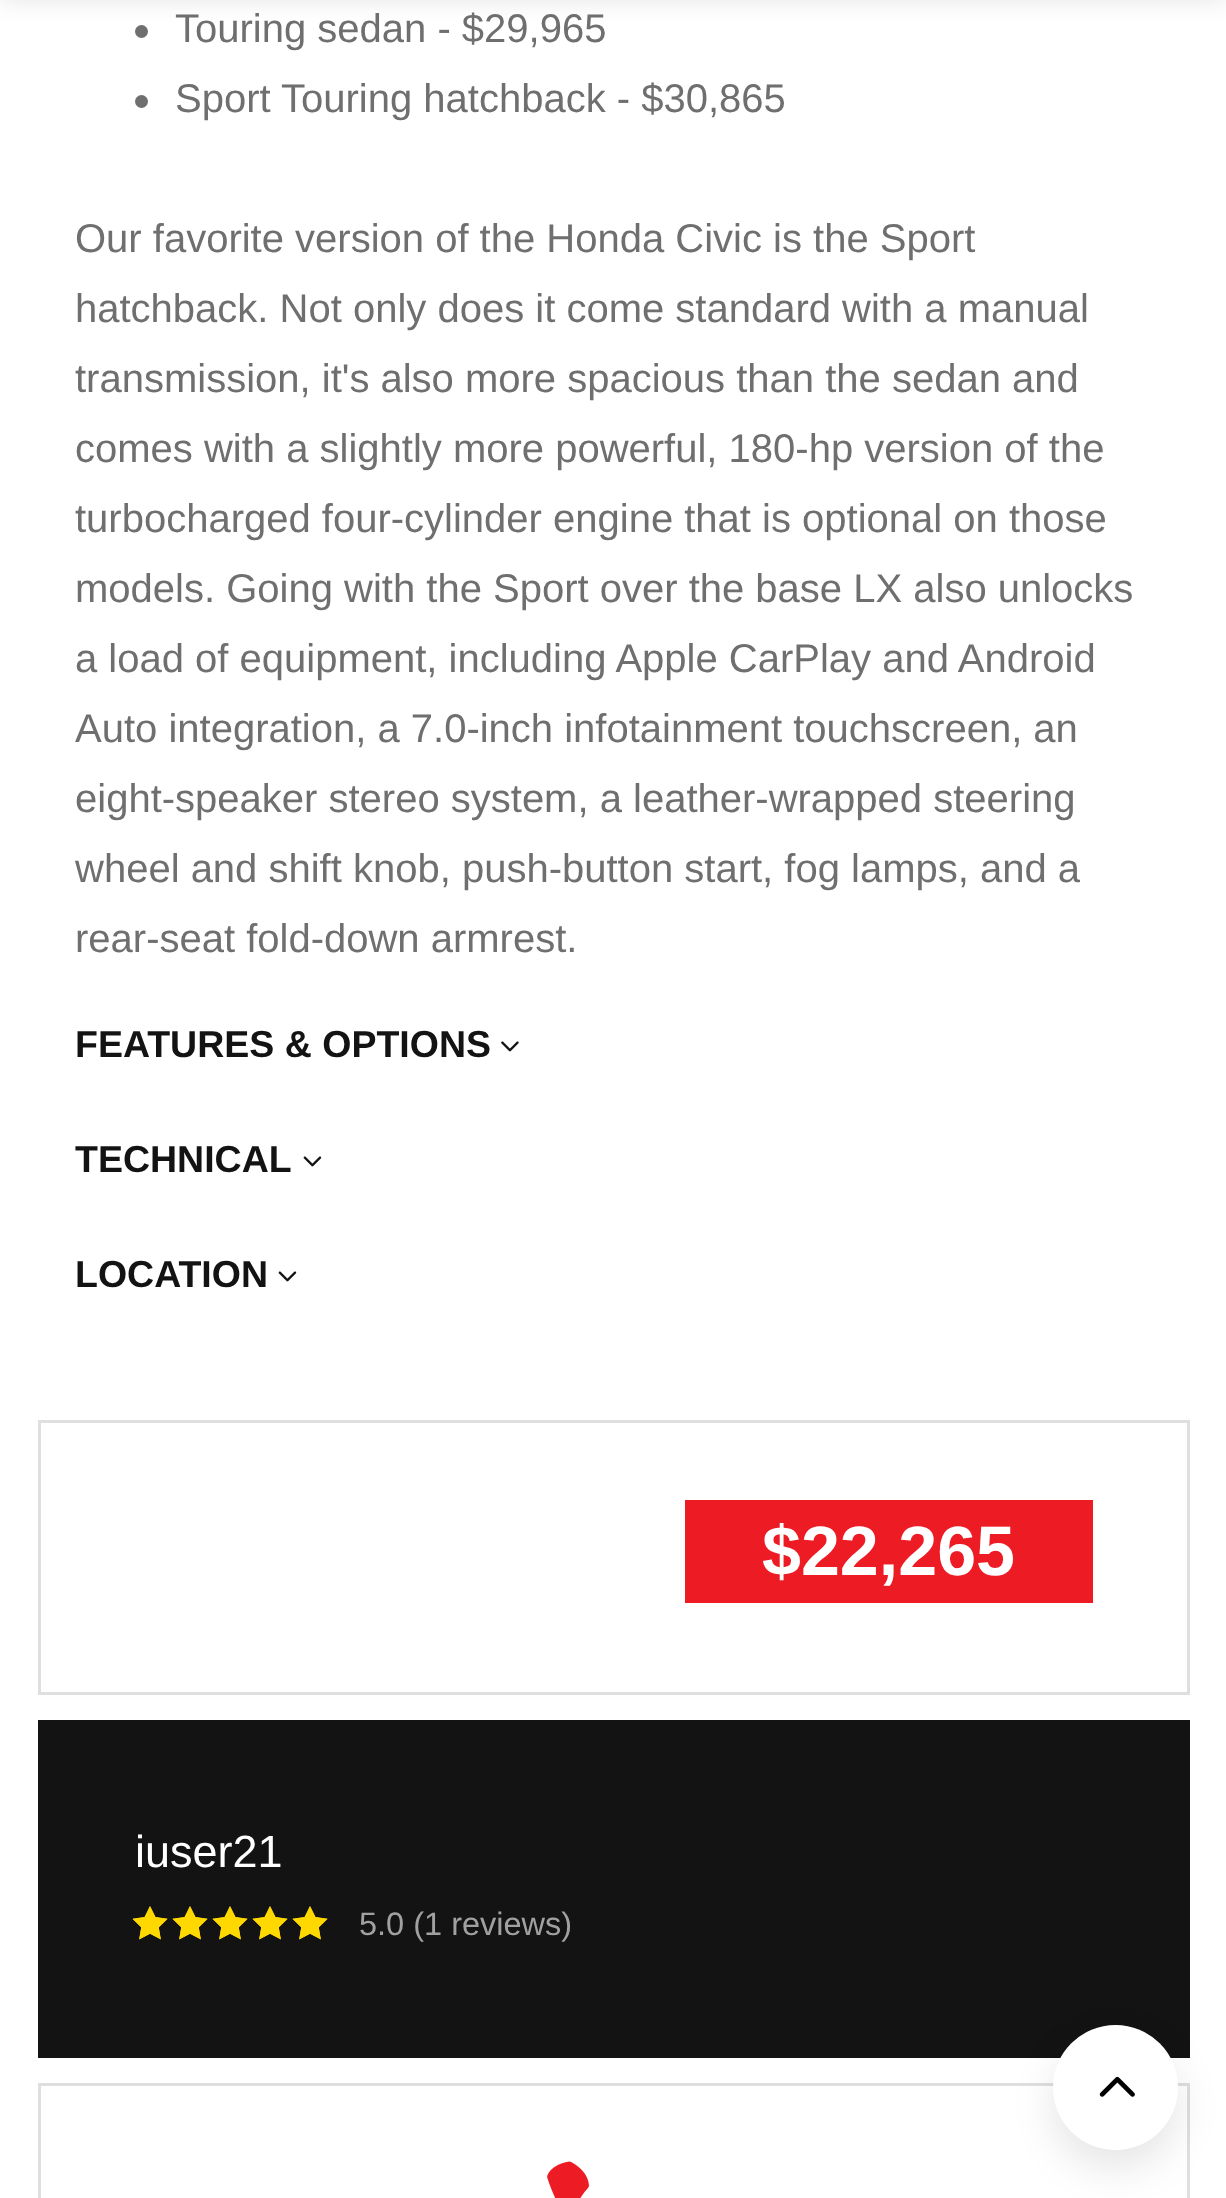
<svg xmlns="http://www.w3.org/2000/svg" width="1226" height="2198">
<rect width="100%" height="100%" fill="#fff"/>
<circle cx="141.5" cy="31.5" r="6.5" fill="#6f6f6f"/>
<rect y="-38" width="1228" height="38" fill="#0000001a" filter="blur(12.5px)"/>
<text x="175" y="42" style="font-family:Liberation Sans;font-size:40px;fill:#6f6f6f">Touring sedan - $29,965</text>
<circle cx="141.5" cy="101.5" r="6.5" fill="#6f6f6f"/>
<text x="175" y="112" style="font-family:Liberation Sans;font-size:40px;fill:#6f6f6f">Sport Touring hatchback - $30,865</text>
<text x="75" y="252" style="font-family:Liberation Sans;font-size:40px;fill:#6f6f6f">Our favorite version of the Honda Civic is the Sport</text>
<text x="75" y="322" style="font-family:Liberation Sans;font-size:40px;fill:#6f6f6f">hatchback. Not only does it come standard with a manual</text>
<text x="75" y="392" style="font-family:Liberation Sans;font-size:40px;fill:#6f6f6f">transmission, it's also more spacious than the sedan and</text>
<text x="75" y="462" style="font-family:Liberation Sans;font-size:40px;fill:#6f6f6f">comes with a slightly more powerful, 180-hp version of the</text>
<text x="75" y="532" style="font-family:Liberation Sans;font-size:40px;fill:#6f6f6f">turbocharged four-cylinder engine that is optional on those</text>
<text x="75" y="602" style="font-family:Liberation Sans;font-size:40px;fill:#6f6f6f">models. Going with the Sport over the base LX also unlocks</text>
<text x="75" y="672" style="font-family:Liberation Sans;font-size:40px;fill:#6f6f6f">a load of equipment, including Apple CarPlay and Android</text>
<text x="75" y="742" style="font-family:Liberation Sans;font-size:40px;fill:#6f6f6f">Auto integration, a 7.0-inch infotainment touchscreen, an</text>
<text x="75" y="812" style="font-family:Liberation Sans;font-size:40px;fill:#6f6f6f">eight-speaker stereo system, a leather-wrapped steering</text>
<text x="75" y="882" style="font-family:Liberation Sans;font-size:40px;fill:#6f6f6f">wheel and shift knob, push-button start, fog lamps, and a</text>
<text x="75" y="952" style="font-family:Liberation Sans;font-size:40px;fill:#6f6f6f">rear-seat fold-down armrest.</text>
<text x="75" y="1057" style="font-family:Liberation Sans;font-size:37.5px;font-weight:bold;fill:#131313">FEATURES &amp; OPTIONS</text>
<image x="501" y="1041" width="18" height="11" href="media/1.png"/>
<text x="75" y="1172" style="font-family:Liberation Sans;font-size:37.5px;font-weight:bold;fill:#131313">TECHNICAL</text>
<image x="303" y="1156" width="19" height="11" href="media/2.png"/>
<text x="75" y="1287" style="font-family:Liberation Sans;font-size:37.5px;font-weight:bold;fill:#131313">LOCATION</text>
<image x="278" y="1271" width="19" height="11" href="media/2.png"/>
<rect x="39.5" y="1421.5" width="1149" height="272" fill="none" stroke="#dfdfdf" stroke-width="3"/>
<rect x="685" y="1500" width="408" height="103" fill="#ed1c24"/>
<text x="762" y="1575" style="font-family:Liberation Sans;font-size:70px;font-weight:bold;fill:#fff">$22,265</text>
<rect x="38" y="1720" width="1152" height="338" fill="#131313"/>
<text x="135" y="1867" style="font-family:Liberation Sans;font-size:45px;fill:#fff">iuser21</text>
<image x="132" y="1906" width="196" height="34" href="media/3.png"/>
<image x="133" y="1906" width="195" height="34" href="media/4.png"/>
<text x="359" y="1935" style="font-family:Liberation Sans;font-size:32.5px;fill:#a1a1a1">5.0 (1 reviews)</text>
<rect x="39.5" y="2084.5" width="1149" height="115" fill="none" stroke="#dfdfdf" stroke-width="3"/>
<image x="547" y="2161" width="42" height="37" href="media/5.png"/>
<rect x="1053" y="2043" width="125" height="125" rx="62.5" fill="#0000001a" filter="blur(20px)"/>
<circle cx="1115.5" cy="2087.5" r="62.5" fill="#fff"/>
<image x="1099" y="2076" width="36" height="21" href="media/6.png"/>
</svg>
